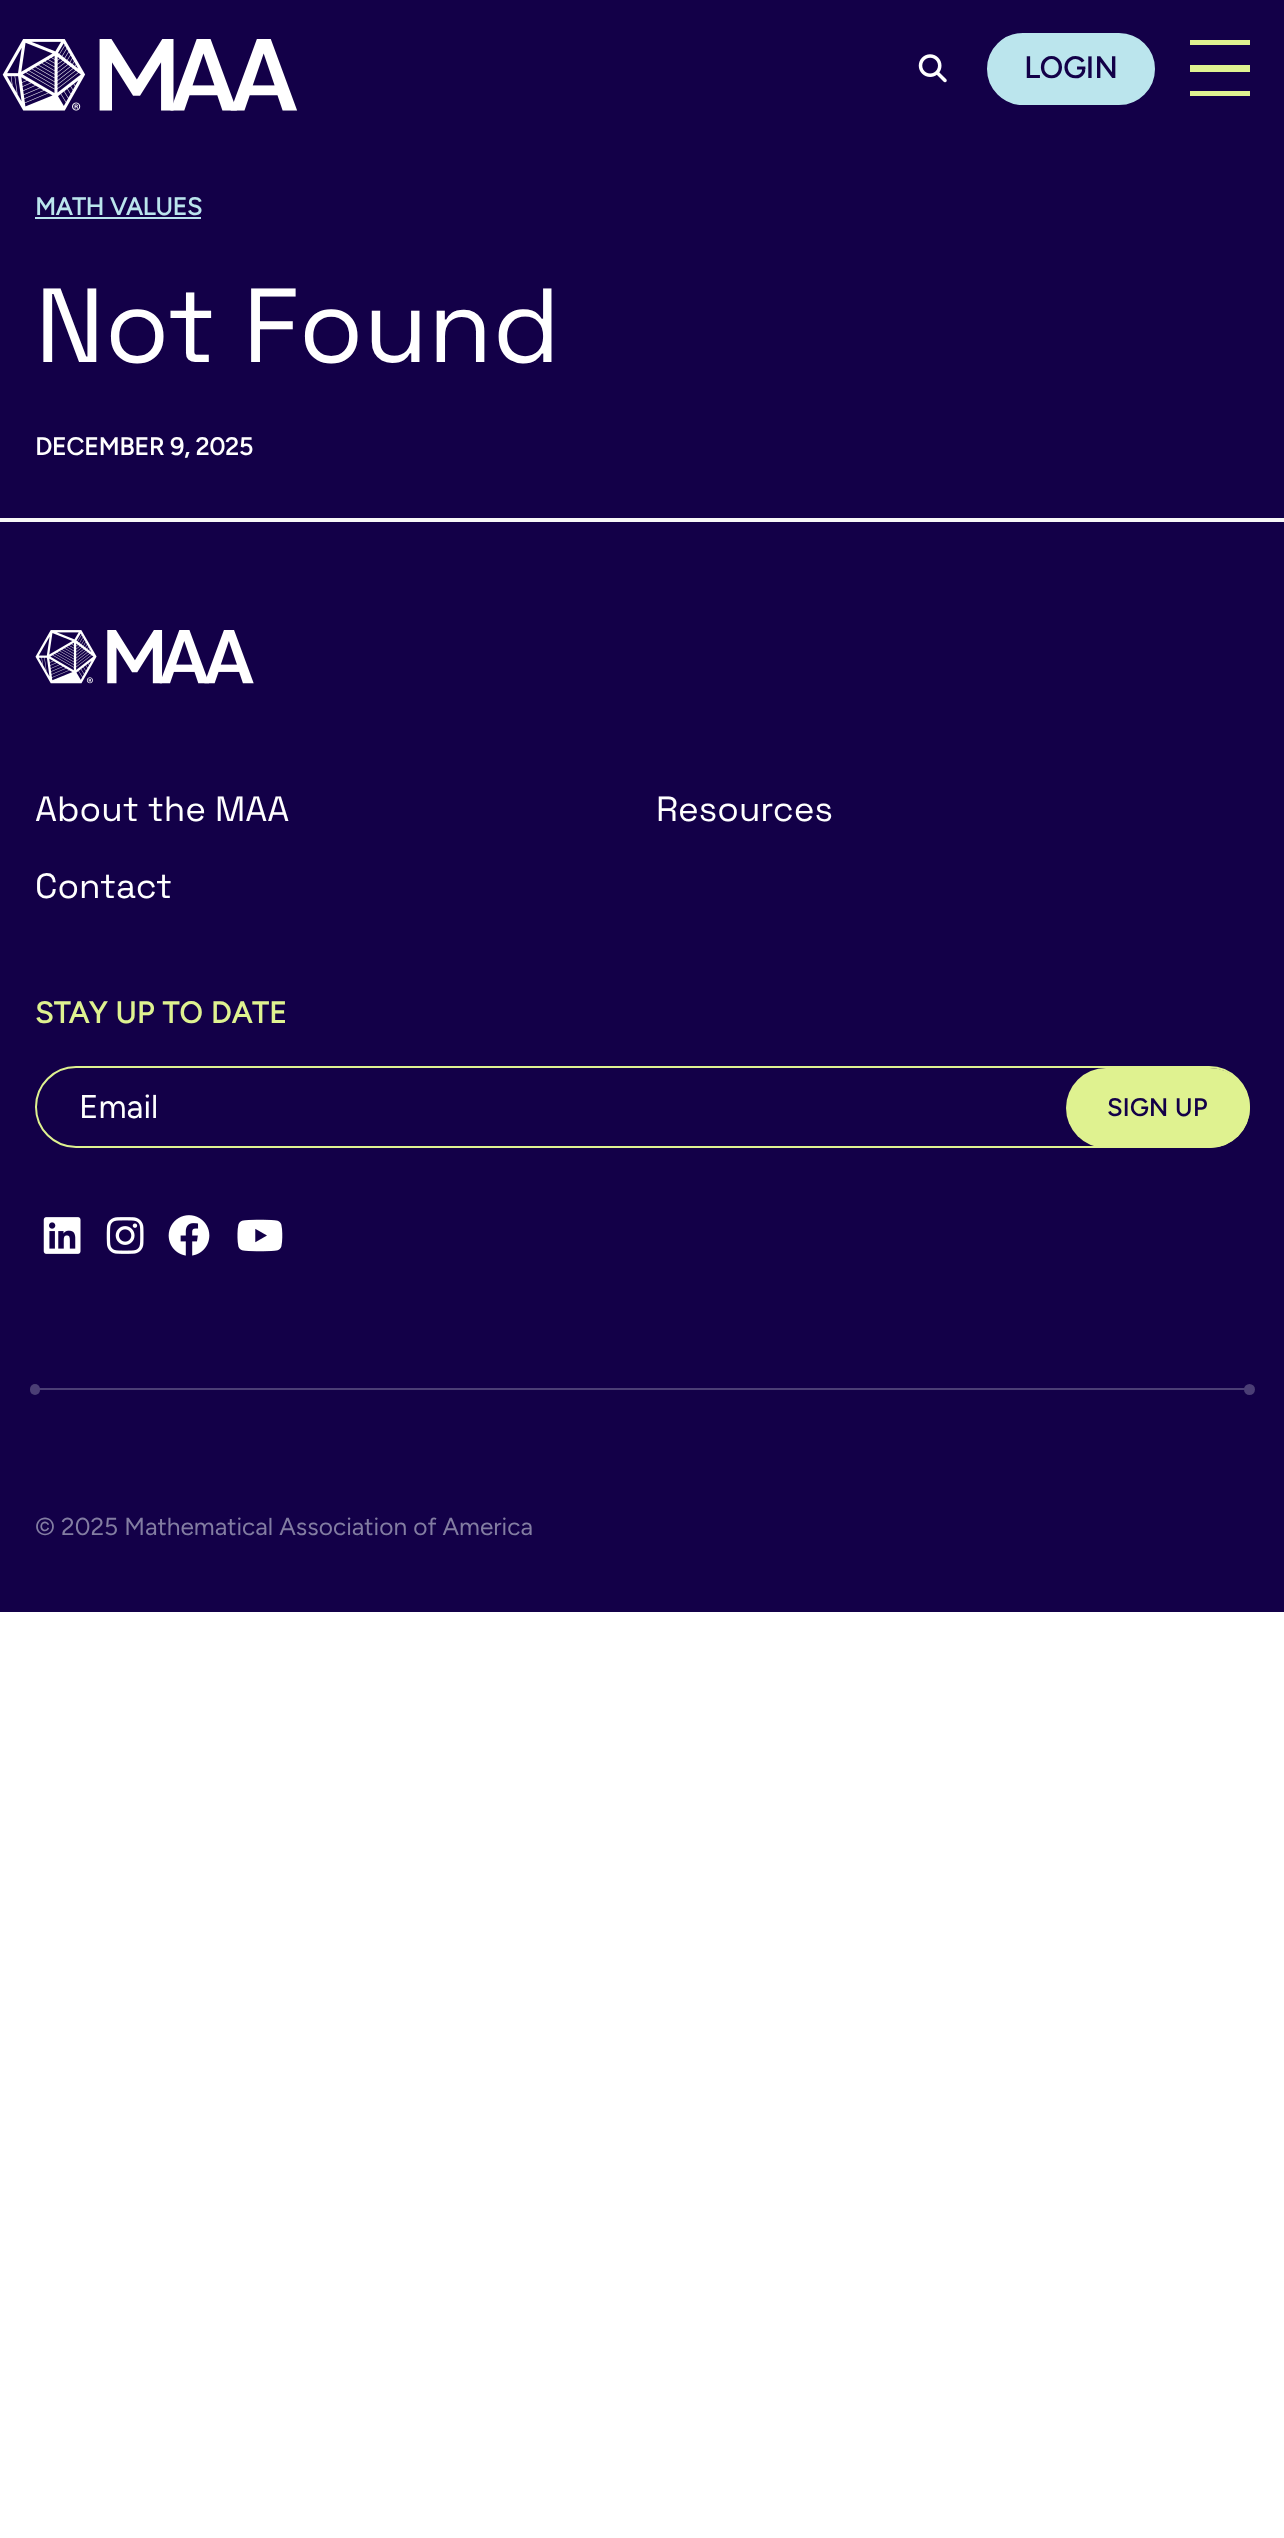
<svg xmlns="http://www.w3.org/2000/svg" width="1284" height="2538">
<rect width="100%" height="100%" fill="#fff"/>
<rect width="1284" height="518" fill="#130048"/>
<image x="2" y="39" width="296" height="72" href="media/1.png"/>
<image x="918" y="54" width="29" height="29" href="media/2.png"/>
<rect x="988" y="34" width="166" height="70" rx="35" fill="#bbe5ed" stroke="#bbe5ed" stroke-width="2"/>
<text x="1024" y="78" style="font-family:Figtree;font-size:29.75px;font-weight:bold;letter-spacing:0.5px;fill:#130048">LOGIN</text>
<rect x="1190" y="40" width="60" height="5" fill="#dff290"/>
<rect x="1190" y="65" width="60" height="7" fill="#dff290"/>
<rect x="1190" y="91" width="60" height="5" fill="#dff290"/>
<rect y="518" width="1284" height="4" fill="#f7f7f7"/>
<text x="35" y="215" style="font-family:Figtree;font-size:24.5px;font-weight:bold;fill:#bbe5ed">MATH VALUES</text>
<rect x="35" y="217" width="166" height="2" fill="#bbe5ed"/>
<text x="35" y="362" style="font-family:Space Grotesk;font-size:105px;fill:#fff">Not Found</text>
<text x="35" y="455" style="font-family:Figtree;font-size:24.5px;font-weight:bold;fill:#fff">DECEMBER 9, 2025</text>
<rect y="522" width="1284" height="1090" fill="#130048"/>
<image x="35" y="630" width="219" height="54" href="media/3.png"/>
<text x="35" y="821" style="font-family:Space Grotesk;font-size:35px;fill:#fff">About the MAA</text>
<text x="656" y="821" style="font-family:Space Grotesk;font-size:35px;fill:#fff">Resources</text>
<text x="35" y="898" style="font-family:Space Grotesk;font-size:35px;fill:#fff">Contact</text>
<text x="35" y="1023" style="font-family:Figtree;font-size:29.75px;font-weight:bold;letter-spacing:0.5px;fill:#dff290">STAY UP TO DATE</text>
<rect x="36" y="1067" width="1213" height="80" rx="40" fill="none" stroke="#dff290" stroke-width="2"/>
<text x="79" y="1118" style="font-family:Figtree;font-size:33px;font-weight:300;fill:#fff">Email</text>
<rect x="1066" y="1068" width="184" height="80" rx="40" fill="#dff290"/>
<text x="1107" y="1116" style="font-family:Figtree;font-size:24.5px;font-weight:bold;letter-spacing:0.5px;fill:#130048">SIGN UP</text>
<image x="43" y="1217" width="38" height="37" href="media/4.png"/>
<image x="106" y="1217" width="38" height="37" href="media/5.png"/>
<image x="168" y="1215" width="42" height="41" href="media/6.png"/>
<image x="237" y="1219" width="46" height="33" href="media/7.png"/>
<rect x="35" y="1388" width="1215" height="2" fill="#4b3e75"/>
<rect x="30" y="1384" width="10" height="11" rx="5" fill="#4b3e75"/>
<circle cx="1249.5" cy="1389.5" r="5.5" fill="#4b3e75"/>
<text x="35" y="1535" style="font-family:Figtree;font-size:24.5px;font-weight:300;fill:#837da2">© 2025 Mathematical Association of America</text>
</svg>
